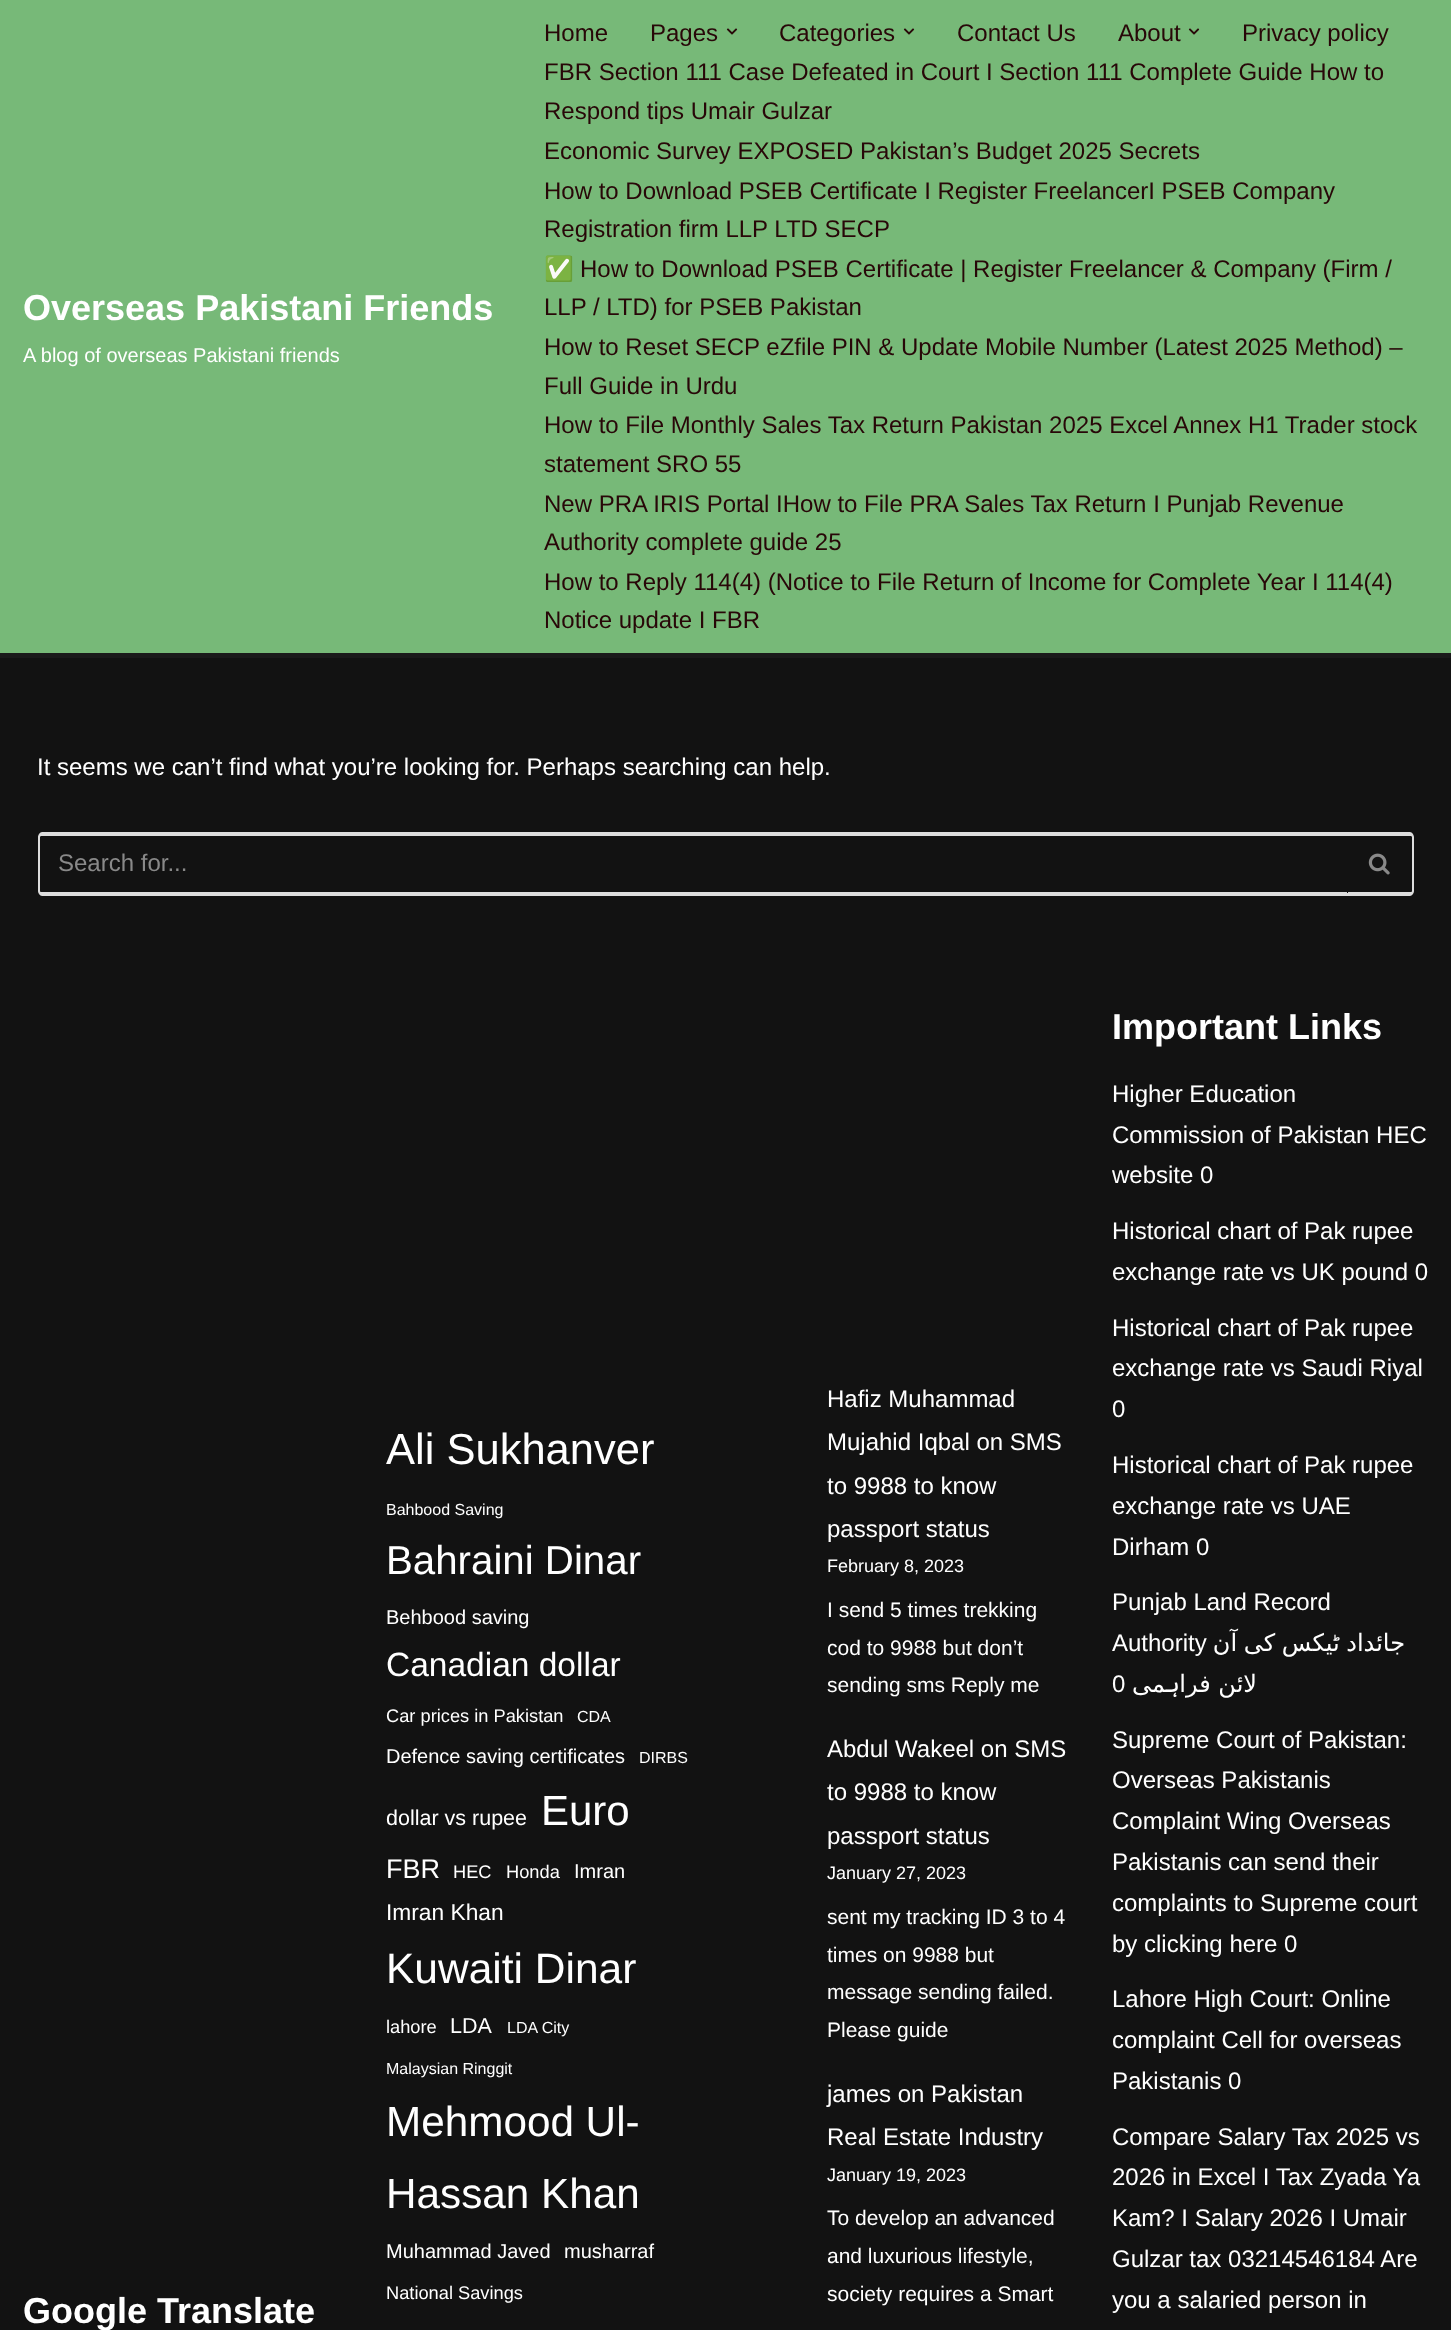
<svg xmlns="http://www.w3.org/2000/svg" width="1451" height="2330">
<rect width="100%" height="100%" fill="#121212"/>
<rect width="1451" height="653" fill="#77b978"/>
<rect y="653" width="1451" height="5" fill="#1a1a1a"/>
<text x="23" y="320" style="font-family:Liberation Sans;font-size:36px;font-weight:bold;fill:#fff">Overseas Pakistani Friends</text>
<text x="23" y="362" style="font-family:Liberation Sans;font-size:20px;fill:#fff">A blog of overseas Pakistani friends</text>
<text x="544" y="41" style="font-family:Liberation Sans;font-size:24px;fill:#280708">Home</text>
<text x="650" y="41" style="font-family:Liberation Sans;font-size:24px;fill:#280708">Pages</text>
<image x="726" y="28" width="12" height="7" href="media/1.png"/>
<text x="779" y="41" style="font-family:Liberation Sans;font-size:24px;fill:#280708">Categories</text>
<image x="903" y="28" width="12" height="7" href="media/1.png"/>
<text x="957" y="41" style="font-family:Liberation Sans;font-size:24px;fill:#280708">Contact Us</text>
<text x="1118" y="41" style="font-family:Liberation Sans;font-size:24px;fill:#280708">About</text>
<image x="1188" y="28" width="12" height="7" href="media/1.png"/>
<text x="1242" y="41" style="font-family:Liberation Sans;font-size:24px;fill:#280708">Privacy policy</text>
<text x="544" y="80" style="font-family:Liberation Sans;font-size:24px;fill:#280708">FBR Section 111 Case Defeated in Court I Section 111 Complete Guide How to</text>
<text x="544" y="119" style="font-family:Liberation Sans;font-size:24px;fill:#280708">Respond tips Umair Gulzar</text>
<text x="544" y="159" style="font-family:Liberation Sans;font-size:24px;fill:#280708">Economic Survey EXPOSED Pakistan’s Budget 2025 Secrets</text>
<text x="544" y="199" style="font-family:Liberation Sans;font-size:24px;fill:#280708">How to Download PSEB Certificate I Register FreelancerI PSEB Company</text>
<text x="544" y="237" style="font-family:Liberation Sans;font-size:24px;fill:#280708">Registration firm LLP LTD SECP</text>
<text x="544" y="277" style="font-family:Noto Color Emoji;font-size:24px;fill:#280708">✅</text>
<text x="580" y="277" style="font-family:Liberation Sans;font-size:24px;fill:#280708">How to Download PSEB Certificate | Register Freelancer &amp; Company (Firm /</text>
<text x="544" y="315" style="font-family:Liberation Sans;font-size:24px;fill:#280708">LLP / LTD) for PSEB Pakistan</text>
<text x="544" y="355" style="font-family:Liberation Sans;font-size:24px;fill:#280708">How to Reset SECP eZfile PIN &amp; Update Mobile Number (Latest 2025 Method) –</text>
<text x="544" y="394" style="font-family:Liberation Sans;font-size:24px;fill:#280708">Full Guide in Urdu</text>
<text x="544" y="433" style="font-family:Liberation Sans;font-size:24px;fill:#280708">How to File Monthly Sales Tax Return Pakistan 2025 Excel Annex H1 Trader stock</text>
<text x="544" y="472" style="font-family:Liberation Sans;font-size:24px;fill:#280708">statement SRO 55</text>
<text x="544" y="512" style="font-family:Liberation Sans;font-size:24px;fill:#280708">New PRA IRIS Portal IHow to File PRA Sales Tax Return I Punjab Revenue</text>
<text x="544" y="550" style="font-family:Liberation Sans;font-size:24px;fill:#280708">Authority complete guide 25</text>
<text x="544" y="590" style="font-family:Liberation Sans;font-size:24px;fill:#280708">How to Reply 114(4) (Notice to File Return of Income for Complete Year I 114(4)</text>
<text x="544" y="628" style="font-family:Liberation Sans;font-size:24px;fill:#280708">Notice update I FBR</text>
<text x="37" y="775" style="font-family:Liberation Sans;font-size:24px;fill:#fff">It seems we can’t find what you’re looking for. Perhaps searching can help.</text>
<path d="M42 832h1305v64h-1305c-2 0-4-3-4-5v-54c0-2 2-5 4-5zm0 4h1305v56h-1305c-1 0-2 0-2-1v-54c0-1 1-1 2-1z" fill="#ddd" fill-rule="evenodd"/>
<text x="58" y="871" style="font-family:Liberation Sans;font-size:24px;fill:#898989">Search for...</text>
<path d="M1347 832h63c2 0 4 3 4 5v54c0 2-2 5-4 5h-63zm0 4h63c1 0 2 0 2 1v54c0 1-1 1-2 1h-63z" fill="#ddd" fill-rule="evenodd"/>
<image x="1368" y="853" width="22" height="22" href="media/2.png"/>
<rect x="1347" y="892" width="1" height="1" fill="#121212"/>
<text x="386" y="1464" style="font-family:Liberation Sans;font-size:43.5px;fill:#fff">Ali Sukhanver</text>
<text x="386" y="1515" style="font-family:Liberation Sans;font-size:16px;fill:#fff">Bahbood Saving</text>
<text x="386" y="1574" style="font-family:Liberation Sans;font-size:40.25px;fill:#fff">Bahraini Dinar</text>
<text x="386" y="1624" style="font-family:Liberation Sans;font-size:20px;fill:#fff">Behbood saving</text>
<text x="386" y="1676" style="font-family:Liberation Sans;font-size:33.5px;fill:#fff">Canadian dollar</text>
<text x="386" y="1722" style="font-family:Liberation Sans;font-size:18.25px;fill:#fff">Car prices in Pakistan</text>
<text x="577" y="1722" style="font-family:Liberation Sans;font-size:16px;fill:#fff">CDA</text>
<text x="386" y="1763" style="font-family:Liberation Sans;font-size:20px;fill:#fff">Defence saving certificates</text>
<text x="639" y="1763" style="font-family:Liberation Sans;font-size:16px;fill:#fff">DIRBS</text>
<text x="386" y="1825" style="font-family:Liberation Sans;font-size:21.5px;fill:#fff">dollar vs rupee</text>
<text x="541" y="1825" style="font-family:Liberation Sans;font-size:42px;fill:#fff">Euro</text>
<text x="386" y="1878" style="font-family:Liberation Sans;font-size:27px;fill:#fff">FBR</text>
<text x="453" y="1878" style="font-family:Liberation Sans;font-size:18.25px;fill:#fff">HEC</text>
<text x="506" y="1878" style="font-family:Liberation Sans;font-size:18.25px;fill:#fff">Honda</text>
<text x="574" y="1878" style="font-family:Liberation Sans;font-size:20px;fill:#fff">Imran</text>
<text x="386" y="1920" style="font-family:Liberation Sans;font-size:22.75px;fill:#fff">Imran Khan</text>
<text x="386" y="1983" style="font-family:Liberation Sans;font-size:42.5px;fill:#fff">Kuwaiti Dinar</text>
<text x="386" y="2033" style="font-family:Liberation Sans;font-size:18.25px;fill:#fff">lahore</text>
<text x="450" y="2033" style="font-family:Liberation Sans;font-size:21.5px;fill:#fff">LDA</text>
<text x="507" y="2033" style="font-family:Liberation Sans;font-size:16px;fill:#fff">LDA City</text>
<text x="386" y="2074" style="font-family:Liberation Sans;font-size:16px;fill:#fff">Malaysian Ringgit</text>
<text x="386" y="2136" style="font-family:Liberation Sans;font-size:42.25px;fill:#fff">Mehmood Ul-</text>
<text x="386" y="2208" style="font-family:Liberation Sans;font-size:42.25px;fill:#fff">Hassan Khan</text>
<text x="386" y="2258" style="font-family:Liberation Sans;font-size:20px;fill:#fff">Muhammad Javed</text>
<text x="564" y="2258" style="font-family:Liberation Sans;font-size:20px;fill:#fff">musharraf</text>
<text x="386" y="2299" style="font-family:Liberation Sans;font-size:18.25px;fill:#fff">National Savings</text>
<text x="827" y="1407" style="font-family:Liberation Sans;font-size:24px;fill:#fff">Hafiz Muhammad</text>
<text x="827" y="1450" style="font-family:Liberation Sans;font-size:24px;fill:#fff">Mujahid Iqbal on SMS</text>
<text x="827" y="1494" style="font-family:Liberation Sans;font-size:24px;fill:#fff">to 9988 to know</text>
<text x="827" y="1537" style="font-family:Liberation Sans;font-size:24px;fill:#fff">passport status</text>
<text x="827" y="1572" style="font-family:Liberation Sans;font-size:18px;fill:#fff">February 8, 2023</text>
<text x="827" y="1617" style="font-family:Liberation Sans;font-size:21px;fill:#fff">I send 5 times trekking</text>
<text x="827" y="1655" style="font-family:Liberation Sans;font-size:21px;fill:#fff">cod to 9988 but don’t</text>
<text x="827" y="1692" style="font-family:Liberation Sans;font-size:21px;fill:#fff">sending sms Reply me</text>
<text x="827" y="1757" style="font-family:Liberation Sans;font-size:24px;fill:#fff">Abdul Wakeel on SMS</text>
<text x="827" y="1800" style="font-family:Liberation Sans;font-size:24px;fill:#fff">to 9988 to know</text>
<text x="827" y="1844" style="font-family:Liberation Sans;font-size:24px;fill:#fff">passport status</text>
<text x="827" y="1879" style="font-family:Liberation Sans;font-size:18px;fill:#fff">January 27, 2023</text>
<text x="827" y="1924" style="font-family:Liberation Sans;font-size:21px;fill:#fff">sent my tracking ID 3 to 4</text>
<text x="827" y="1962" style="font-family:Liberation Sans;font-size:21px;fill:#fff">times on 9988 but</text>
<text x="827" y="1999" style="font-family:Liberation Sans;font-size:21px;fill:#fff">message sending failed.</text>
<text x="827" y="2037" style="font-family:Liberation Sans;font-size:21px;fill:#fff">Please guide</text>
<text x="827" y="2102" style="font-family:Liberation Sans;font-size:24px;fill:#fff">james on Pakistan</text>
<text x="827" y="2145" style="font-family:Liberation Sans;font-size:24px;fill:#fff">Real Estate Industry</text>
<text x="827" y="2181" style="font-family:Liberation Sans;font-size:18px;fill:#fff">January 19, 2023</text>
<text x="827" y="2225" style="font-family:Liberation Sans;font-size:21px;fill:#fff">To develop an advanced</text>
<text x="827" y="2263" style="font-family:Liberation Sans;font-size:21px;fill:#fff">and luxurious lifestyle,</text>
<text x="827" y="2301" style="font-family:Liberation Sans;font-size:21px;fill:#fff">society requires a Smart</text>
<text x="1112" y="1039" style="font-family:Liberation Sans;font-size:36px;font-weight:bold;fill:#fff">Important Links</text>
<text x="1112" y="1102" style="font-family:Liberation Sans;font-size:24px;fill:#fff">Higher Education</text>
<text x="1112" y="1143" style="font-family:Liberation Sans;font-size:24px;fill:#fff">Commission of Pakistan HEC</text>
<text x="1112" y="1183" style="font-family:Liberation Sans;font-size:24px;fill:#fff">website 0</text>
<text x="1112" y="1239" style="font-family:Liberation Sans;font-size:24px;fill:#fff">Historical chart of Pak rupee</text>
<text x="1112" y="1280" style="font-family:Liberation Sans;font-size:24px;fill:#fff">exchange rate vs UK pound 0</text>
<text x="1112" y="1336" style="font-family:Liberation Sans;font-size:24px;fill:#fff">Historical chart of Pak rupee</text>
<text x="1112" y="1376" style="font-family:Liberation Sans;font-size:24px;fill:#fff">exchange rate vs Saudi Riyal</text>
<text x="1112" y="1417" style="font-family:Liberation Sans;font-size:24px;fill:#fff">0</text>
<text x="1112" y="1473" style="font-family:Liberation Sans;font-size:24px;fill:#fff">Historical chart of Pak rupee</text>
<text x="1112" y="1514" style="font-family:Liberation Sans;font-size:24px;fill:#fff">exchange rate vs UAE</text>
<text x="1112" y="1555" style="font-family:Liberation Sans;font-size:24px;fill:#fff">Dirham 0</text>
<text x="1112" y="1610" style="font-family:Liberation Sans;font-size:24px;fill:#fff">Punjab Land Record</text>
<text x="1112" y="1651" style="font-family:Liberation Sans;font-size:24px;fill:#fff">Authority</text>
<text x="1405" y="1651" word-spacing="-1" style="font-family:DejaVu Sans;font-size:24px;direction:rtl;fill:#fff">جائداد ٹيکس کی آن</text>
<text x="1112" y="1692" style="font-family:Liberation Sans;font-size:24px;fill:#fff">0</text>
<text x="1166" y="1692" style="font-family:DejaVu Sans;font-size:24px;direction:rtl;fill:#fff">‍می</text>
<text x="1180" y="1692" style="font-family:Cascadia Code;font-size:24px;direction:rtl;fill:#fff">ہ‍</text>
<text x="1257" y="1692" style="font-family:DejaVu Sans;font-size:24px;direction:rtl;fill:#fff">لائن فرا</text>
<text x="1112" y="1748" style="font-family:Liberation Sans;font-size:24px;fill:#fff">Supreme Court of Pakistan:</text>
<text x="1112" y="1788" style="font-family:Liberation Sans;font-size:24px;fill:#fff">Overseas Pakistanis</text>
<text x="1112" y="1829" style="font-family:Liberation Sans;font-size:24px;fill:#fff">Complaint Wing Overseas</text>
<text x="1112" y="1870" style="font-family:Liberation Sans;font-size:24px;fill:#fff">Pakistanis can send their</text>
<text x="1112" y="1911" style="font-family:Liberation Sans;font-size:24px;fill:#fff">complaints to Supreme court</text>
<text x="1112" y="1952" style="font-family:Liberation Sans;font-size:24px;fill:#fff">by clicking here 0</text>
<text x="1112" y="2007" style="font-family:Liberation Sans;font-size:24px;fill:#fff">Lahore High Court: Online</text>
<text x="1112" y="2048" style="font-family:Liberation Sans;font-size:24px;fill:#fff">complaint Cell for overseas</text>
<text x="1112" y="2089" style="font-family:Liberation Sans;font-size:24px;fill:#fff">Pakistanis 0</text>
<text x="1112" y="2145" style="font-family:Liberation Sans;font-size:24px;fill:#fff">Compare Salary Tax 2025 vs</text>
<text x="1112" y="2185" style="font-family:Liberation Sans;font-size:24px;fill:#fff">2026 in Excel I Tax Zyada Ya</text>
<text x="1112" y="2226" style="font-family:Liberation Sans;font-size:24px;fill:#fff">Kam? I Salary 2026 I Umair</text>
<text x="1112" y="2267" style="font-family:Liberation Sans;font-size:24px;fill:#fff">Gulzar tax 03214546184 Are</text>
<text x="1112" y="2308" style="font-family:Liberation Sans;font-size:24px;fill:#fff">you a salaried person in</text>
<text x="23" y="2323" style="font-family:Liberation Sans;font-size:36px;font-weight:bold;fill:#fff">Google Translate</text>
</svg>
